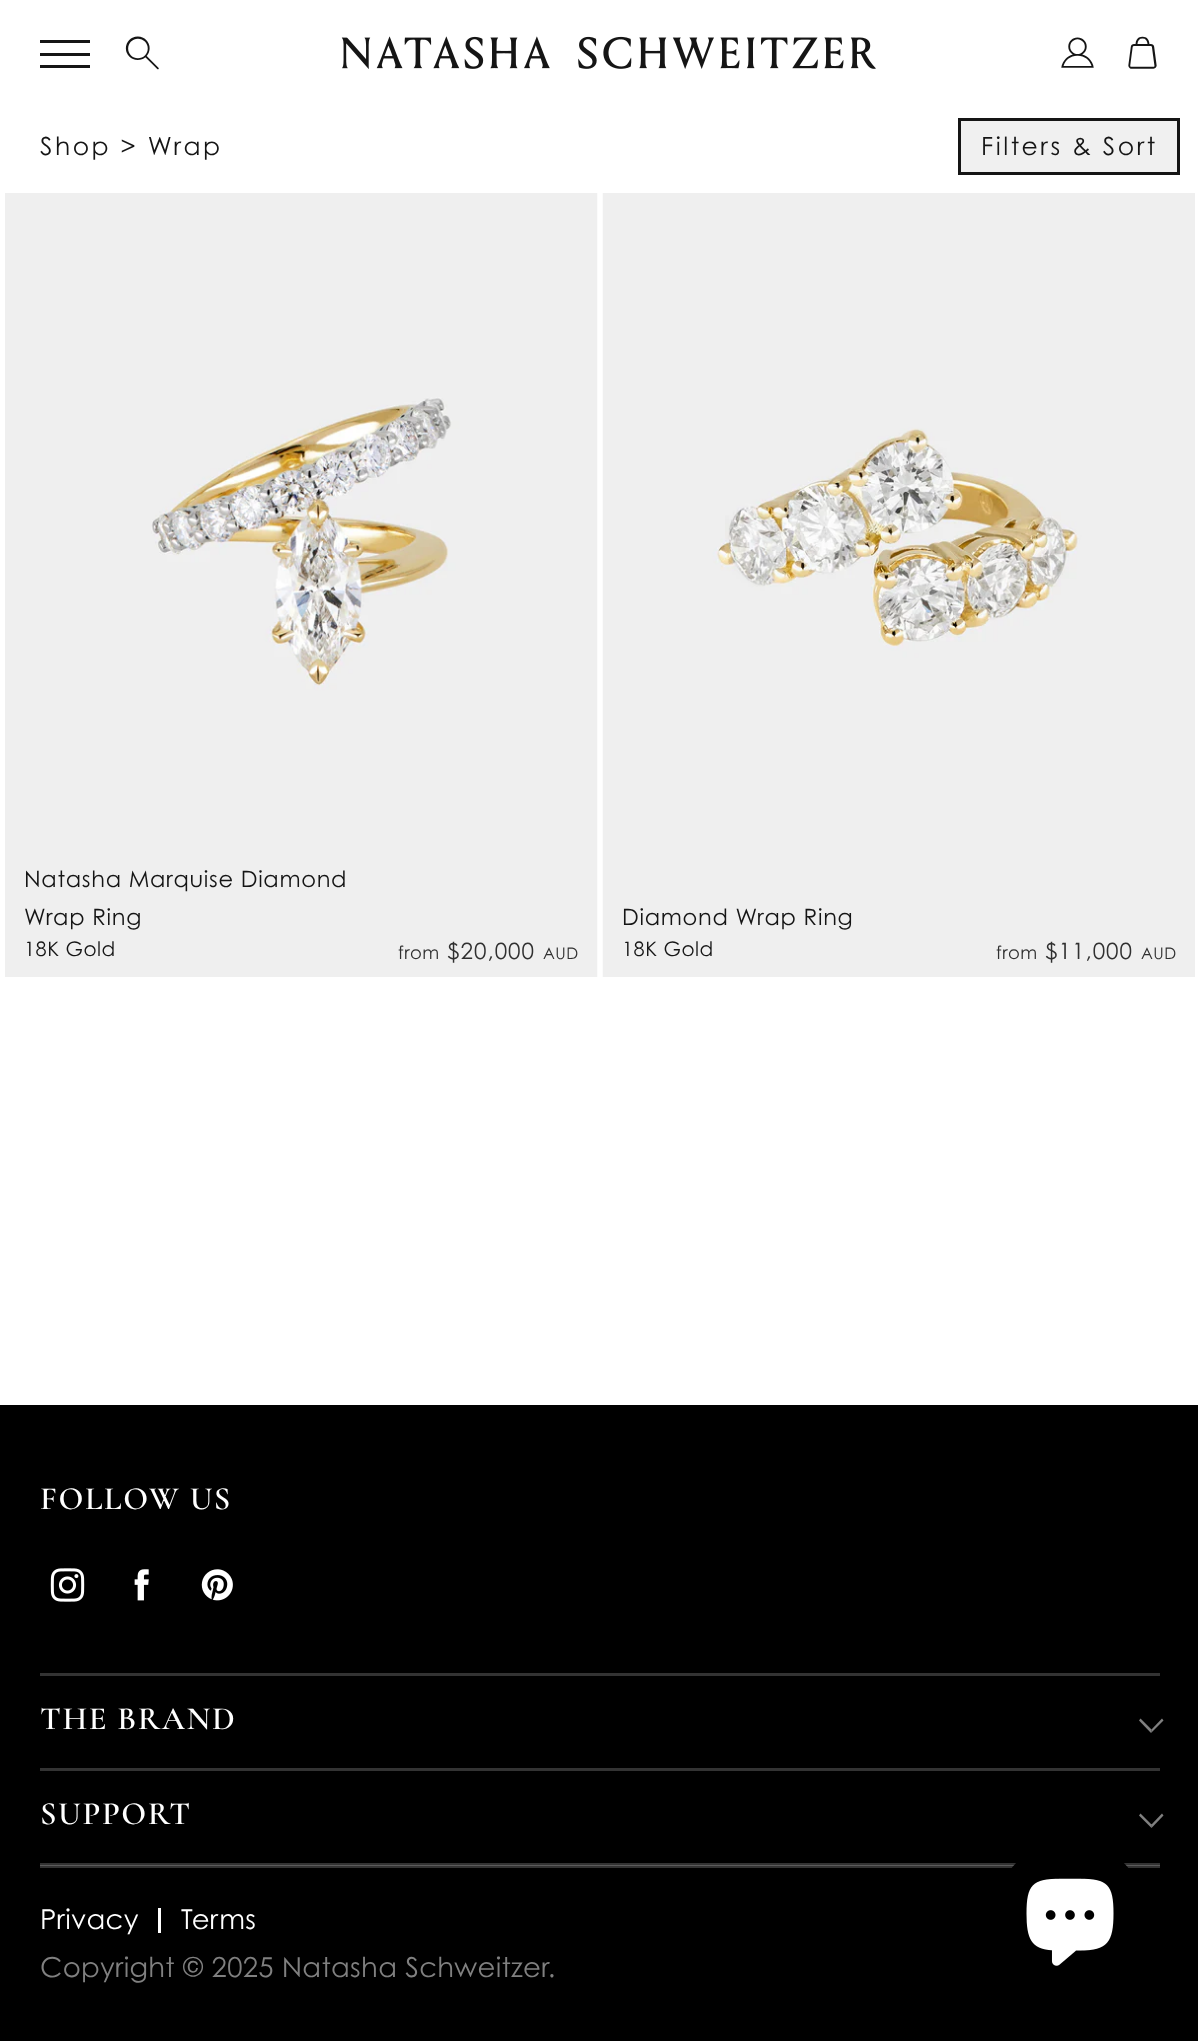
<svg xmlns="http://www.w3.org/2000/svg" width="1198" height="2041">
<rect width="100%" height="100%" fill="#fff"/>
<rect x="40" y="40" width="50" height="3" fill="#151515"/>
<rect x="40" y="53" width="50" height="3" fill="#151515"/>
<rect x="40" y="65" width="50" height="3" fill="#151515"/>
<text x="125" y="68" style="font-family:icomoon;font-size:35px;fill:#151515">¤</text>
<image x="341" y="36" width="535" height="33" href="media/1.png"/>
<text x="1060" y="68" style="font-family:icomoon;font-size:35px;fill:#151515">£</text>
<text x="1125" y="68" style="font-family:icomoon;font-size:35px;fill:#151515">¢</text>
<text x="40" y="155" style="font-family:Century Gothic;font-size:25px;letter-spacing:2.5px;fill:#151515">Shop &gt; Wrap</text>
<rect x="959.5" y="119.5" width="219" height="54" fill="#f0f0f0" stroke="#151515" stroke-width="3"/>
<text x="981" y="155" style="font-family:Century Gothic;font-size:25px;letter-spacing:2.5px;fill:#151515">Filters &amp; Sort</text>
<image x="5" y="193" width="593" height="784" href="media/2.png"/>
<text x="24" y="887" style="font-family:Century Gothic;font-size:22.5px;letter-spacing:0.7px;fill:#151515">Natasha Marquise Diamond</text>
<text x="24" y="925" style="font-family:Century Gothic;font-size:22.5px;letter-spacing:0.7px;fill:#151515">Wrap Ring</text>
<text x="24" y="956" style="font-family:Century Gothic;font-size:20px;letter-spacing:0.5px;fill:#151515">18K Gold</text>
<text x="398" y="959" style="font-family:Century Gothic;font-size:18px;letter-spacing:0.5px;fill:#303030">from</text>
<text x="447" y="959" style="font-family:Century Gothic;font-size:22.5px;letter-spacing:1px;fill:#303030">$20,000</text>
<text x="543" y="959" style="font-family:Century Gothic;font-size:16px;letter-spacing:0.5px;fill:#303030">AUD</text>
<image x="602" y="193" width="593" height="784" href="media/3.png"/>
<text x="622" y="925" style="font-family:Century Gothic;font-size:22.5px;letter-spacing:0.7px;fill:#151515">Diamond Wrap Ring</text>
<text x="622" y="956" style="font-family:Century Gothic;font-size:20px;letter-spacing:0.5px;fill:#151515">18K Gold</text>
<text x="996" y="959" style="font-family:Century Gothic;font-size:18px;letter-spacing:0.5px;fill:#303030">from</text>
<text x="1045" y="959" style="font-family:Century Gothic;font-size:22.5px;letter-spacing:1px;fill:#303030">$11,000</text>
<text x="1141" y="959" style="font-family:Century Gothic;font-size:16px;letter-spacing:0.5px;fill:#303030">AUD</text>
<rect y="1405" width="1198" height="636" fill="#000"/>
<rect x="40" y="1863" width="1120" height="2" fill="#333"/>
<rect x="40" y="1866" width="1120" height="2" fill="#333"/>
<rect x="40" y="1865" width="1120" height="1" fill="#5c5c5c"/>
<text x="40" y="1509" style="font-family:Cormorant Garamond;font-size:32.5px;font-weight:600;letter-spacing:1.6px;fill:#fff">FOLLOW US</text>
<image x="50" y="1568" width="35" height="34" href="media/4.png"/>
<image x="134" y="1569" width="15" height="32" href="media/5.png"/>
<image x="201" y="1569" width="32" height="32" href="media/6.png"/>
<rect x="40" y="1673" width="1120" height="3" fill="#333"/>
<text x="40" y="1729" style="font-family:Cormorant Garamond;font-size:32.5px;font-weight:600;letter-spacing:1.6px;fill:#fff">THE BRAND</text>
<path d="M1163.5 1720.5l-12.5 12.5l.5-3.5l10.5-11z" fill="#808080"/>
<path d="M1151 1733l-12-12.5l1.5-2l11 11z" fill="#808080"/>
<rect x="40" y="1768" width="1120" height="3" fill="#333"/>
<text x="40" y="1824" style="font-family:Cormorant Garamond;font-size:32.5px;font-weight:600;letter-spacing:1.6px;fill:#fff">SUPPORT</text>
<path d="M1163.5 1815.5l-12 12.5v-3.5l10.5-11z" fill="#808080"/>
<path d="M1151.5 1828l-12.5-12.5l1.5-2l11 11z" fill="#ffffff80"/>
<text x="40" y="1929" style="font-family:Century Gothic;font-size:27.5px;letter-spacing:0.3px;fill:#fff">Privacy</text>
<rect x="158" y="1908" width="3" height="25" fill="#fff"/>
<text x="181" y="1929" style="font-family:Century Gothic;font-size:27.5px;letter-spacing:0.3px;fill:#fff">Terms</text>
<text x="40" y="1977" style="font-family:Century Gothic;font-size:27.5px;letter-spacing:0.3px;fill:#808080">Copyright © 2025 Natasha Schweitzer.</text>
<circle cx="1070" cy="1915" r="75" fill="#000"/>
<image x="1026" y="1878" width="88" height="88" href="media/7.png"/>
</svg>
